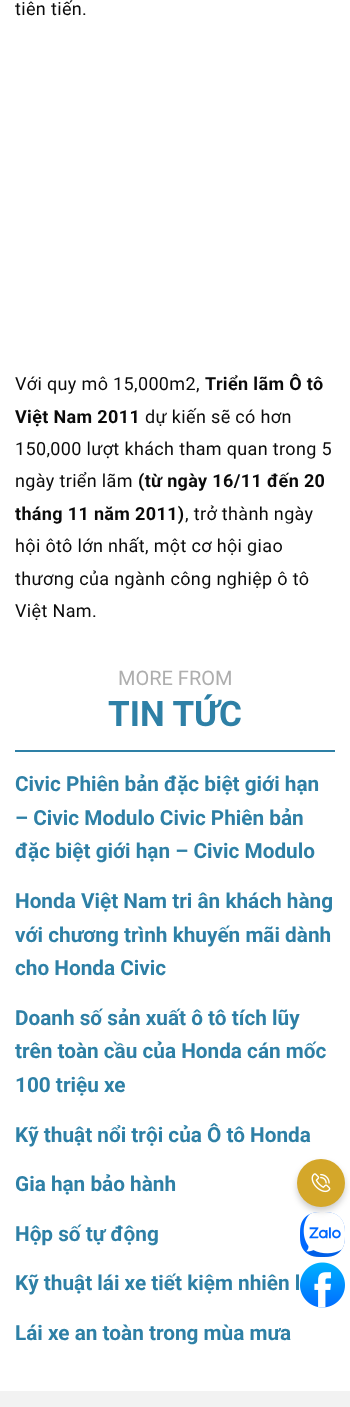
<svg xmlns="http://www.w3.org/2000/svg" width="350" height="1407">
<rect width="100%" height="100%" fill="#fff"/>
<text x="15" y="15" style="font-family:Roboto;font-size:18px;letter-spacing:0.35px;fill:#0a0a0a">tiên tiến.</text>
<text x="15" y="390" style="font-family:Roboto;font-size:18px;letter-spacing:0.35px;fill:#0a0a0a">Với quy mô 15,000m2,</text>
<text x="205" y="390" style="font-family:Roboto;font-size:18px;font-weight:bold;letter-spacing:0.35px;fill:#0a0a0a">Triển lãm Ô tô</text>
<text x="15" y="423" style="font-family:Roboto;font-size:18px;font-weight:bold;letter-spacing:0.35px;fill:#0a0a0a">Việt Nam 2011</text>
<text x="145" y="423" style="font-family:Roboto;font-size:18px;letter-spacing:0.35px;fill:#0a0a0a">dự kiến sẽ có hơn</text>
<text x="15" y="455" style="font-family:Roboto;font-size:18px;letter-spacing:0.35px;fill:#0a0a0a">150,000 lượt khách tham quan trong 5</text>
<text x="15" y="487" style="font-family:Roboto;font-size:18px;letter-spacing:0.35px;fill:#0a0a0a">ngày triển lãm</text>
<text x="138" y="487" style="font-family:Roboto;font-size:18px;font-weight:bold;letter-spacing:0.35px;fill:#0a0a0a">(từ ngày 16/11 đến 20</text>
<text x="15" y="520" style="font-family:Roboto;font-size:18px;font-weight:bold;letter-spacing:0.35px;fill:#0a0a0a">tháng 11 năm 2011)</text>
<text x="185" y="520" style="font-family:Roboto;font-size:18px;letter-spacing:0.35px;fill:#0a0a0a">, trở thành ngày</text>
<text x="15" y="552" style="font-family:Roboto;font-size:18px;letter-spacing:0.35px;fill:#0a0a0a">hội ôtô lớn nhất, một cơ hội giao</text>
<text x="15" y="585" style="font-family:Roboto;font-size:18px;letter-spacing:0.35px;fill:#0a0a0a">thương của ngành công nghiệp ô tô</text>
<text x="15" y="617" style="font-family:Roboto;font-size:18px;letter-spacing:0.35px;fill:#0a0a0a">Việt Nam.</text>
<rect x="15" y="750" width="320" height="2" fill="#2e80a6"/>
<text x="118" y="685" style="font-family:Roboto;font-size:20px;fill:#aeaeae">MORE FROM</text>
<text x="108" y="726" style="font-family:Roboto;font-size:35px;font-weight:bold;fill:#2e80a6">TIN TỨC</text>
<text x="15" y="791" style="font-family:Roboto;font-size:20.75px;font-weight:bold;fill:#2e80a6">Civic Phiên bản đặc biệt giới hạn</text>
<text x="15" y="825" style="font-family:Roboto;font-size:20.75px;font-weight:bold;fill:#2e80a6">– Civic Modulo Civic Phiên bản</text>
<text x="15" y="858" style="font-family:Roboto;font-size:20.75px;font-weight:bold;fill:#2e80a6">đặc biệt giới hạn – Civic Modulo</text>
<text x="15" y="908" style="font-family:Roboto;font-size:20.75px;font-weight:bold;fill:#2e80a6">Honda Việt Nam tri ân khách hàng</text>
<text x="15" y="942" style="font-family:Roboto;font-size:20.75px;font-weight:bold;fill:#2e80a6">với chương trình khuyến mãi dành</text>
<text x="15" y="975" style="font-family:Roboto;font-size:20.75px;font-weight:bold;fill:#2e80a6">cho Honda Civic</text>
<text x="15" y="1025" style="font-family:Roboto;font-size:20.75px;font-weight:bold;fill:#2e80a6">Doanh số sản xuất ô tô tích lũy</text>
<text x="15" y="1058" style="font-family:Roboto;font-size:20.75px;font-weight:bold;fill:#2e80a6">trên toàn cầu của Honda cán mốc</text>
<text x="15" y="1092" style="font-family:Roboto;font-size:20.75px;font-weight:bold;fill:#2e80a6">100 triệu xe</text>
<text x="15" y="1142" style="font-family:Roboto;font-size:20.75px;font-weight:bold;fill:#2e80a6">Kỹ thuật nổi trội của Ô tô Honda</text>
<text x="15" y="1191" style="font-family:Roboto;font-size:20.75px;font-weight:bold;fill:#2e80a6">Gia hạn bảo hành</text>
<text x="15" y="1241" style="font-family:Roboto;font-size:20.75px;font-weight:bold;fill:#2e80a6">Hộp số tự động</text>
<text x="15" y="1290" style="font-family:Roboto;font-size:20.75px;font-weight:bold;fill:#2e80a6">Kỹ thuật lái xe tiết kiệm nhiên l</text>
<text x="15" y="1340" style="font-family:Roboto;font-size:20.75px;font-weight:bold;fill:#2e80a6">Lái xe an toàn trong mùa mưa</text>
<image x="300" y="1212" width="45" height="45" href="media/2.png"/>
<rect x="297" y="1163" width="48" height="48" rx="24" fill="#00000033" filter="blur(3px)"/>
<circle cx="321" cy="1183" r="24" fill="#d4a72a"/>
<image x="311" y="1173" width="20" height="20" href="media/1.png"/>
<image x="300" y="1262" width="45" height="46" href="media/3.png"/>
<rect y="1391" width="350" height="16" fill="#f2f2f2"/>
</svg>
